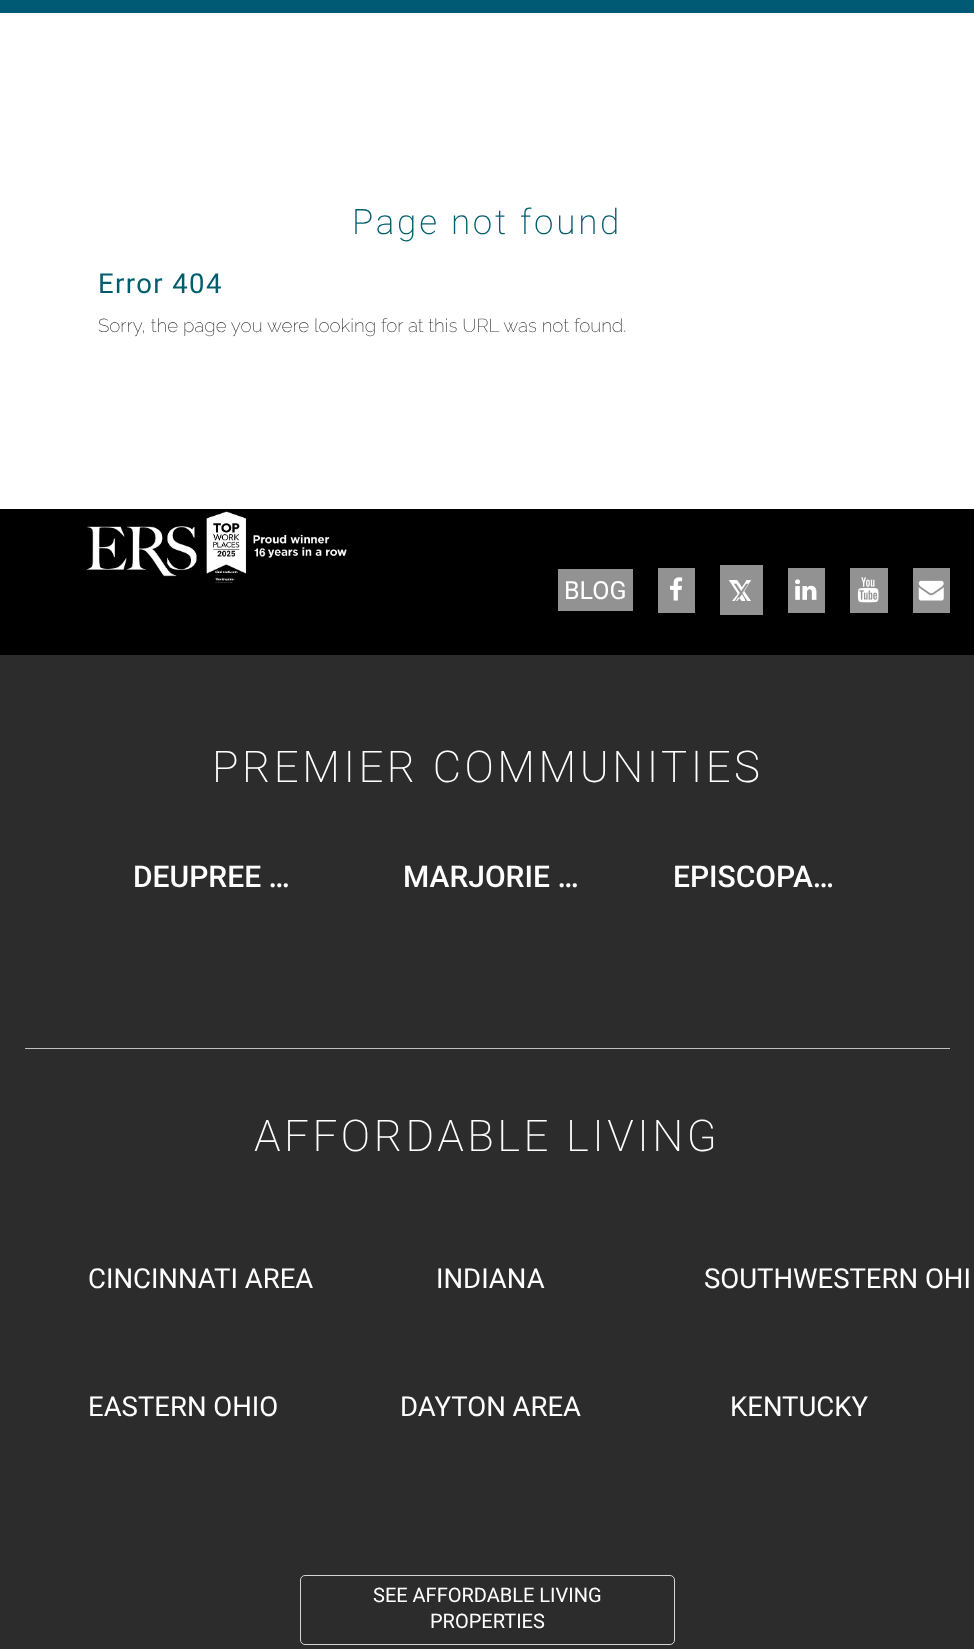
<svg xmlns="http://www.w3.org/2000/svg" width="974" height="1649">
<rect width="100%" height="100%" fill="#fff"/>
<rect width="974" height="13" fill="#005a73"/>
<text x="352" y="234" style="font-family:Roboto;font-size:35px;font-weight:200;letter-spacing:2.75px;fill:#005d6e">Page not found</text>
<text x="98" y="293" style="font-family:Roboto;font-size:27.5px;letter-spacing:1.4px;fill:#005d6e">Error 404</text>
<text x="98" y="332" style="font-family:Raleway;font-size:18.75px;font-weight:200;fill:#383838">Sorry, the page you were looking for at this URL was not found.</text>
<rect y="509" width="974" height="146" fill="#000"/>
<image x="86" y="511" width="261" height="72" href="media/1.png"/>
<rect x="558" y="569" width="75" height="42" fill="#929292"/>
<text x="564" y="599" style="font-family:Roboto;font-size:25px;fill:#fff">BLOG</text>
<rect x="658" y="568" width="37" height="45" fill="#929292"/>
<image x="670" y="577" width="13" height="24" href="media/2.png"/>
<rect x="720" y="565" width="43" height="50" fill="#929292"/>
<image x="728" y="580" width="24" height="21" href="media/3.png"/>
<rect x="788" y="568" width="37" height="45" fill="#929292"/>
<image x="795" y="579" width="22" height="21" href="media/4.png"/>
<rect x="850" y="568" width="38" height="45" fill="#929292"/>
<image x="857" y="577" width="22" height="26" href="media/5.png"/>
<rect x="913" y="568" width="37" height="45" fill="#929292"/>
<image x="918" y="580" width="26" height="21" href="media/6.png"/>
<rect y="655" width="974" height="994" fill="#2c2c2c"/>
<rect x="25" y="1048" width="925" height="1" fill="#c0c0c0"/>
<text x="212" y="782" style="font-family:Roboto;font-size:43.75px;font-weight:200;letter-spacing:3.5px;fill:#fff">PREMIER COMMUNITIES</text>
<text x="133" y="887" style="font-family:Roboto;font-size:30px;font-weight:500;fill:#fff">DEUPREE …</text>
<text x="403" y="887" style="font-family:Roboto;font-size:30px;font-weight:500;fill:#fff">MARJORIE …</text>
<text x="673" y="887" style="font-family:Roboto;font-size:30px;font-weight:500;fill:#fff">EPISCOPA…</text>
<text x="254" y="1151" style="font-family:Roboto;font-size:43.75px;font-weight:200;letter-spacing:3.5px;fill:#fff">AFFORDABLE LIVING</text>
<text x="88" y="1288" style="font-family:Roboto;font-size:27.5px;fill:#fff">CINCINNATI AREA</text>
<text x="436" y="1288" style="font-family:Roboto;font-size:27.5px;fill:#fff">INDIANA</text>
<text x="704" y="1288" style="font-family:Roboto;font-size:27.5px;fill:#fff">SOUTHWESTERN OHI</text>
<text x="88" y="1416" style="font-family:Roboto;font-size:27.5px;fill:#fff">EASTERN OHIO</text>
<text x="400" y="1416" style="font-family:Roboto;font-size:27.5px;fill:#fff">DAYTON AREA</text>
<text x="730" y="1416" style="font-family:Roboto;font-size:27.5px;fill:#fff">KENTUCKY</text>
<rect x="300.5" y="1575.5" width="374" height="69" rx="4.5" fill="none" stroke="#d5d5d5"/>
<text x="373" y="1602" style="font-family:Roboto;font-size:20px;fill:#fff">SEE AFFORDABLE LIVING</text>
<text x="430" y="1628" style="font-family:Roboto;font-size:20px;fill:#fff">PROPERTIES</text>
</svg>
